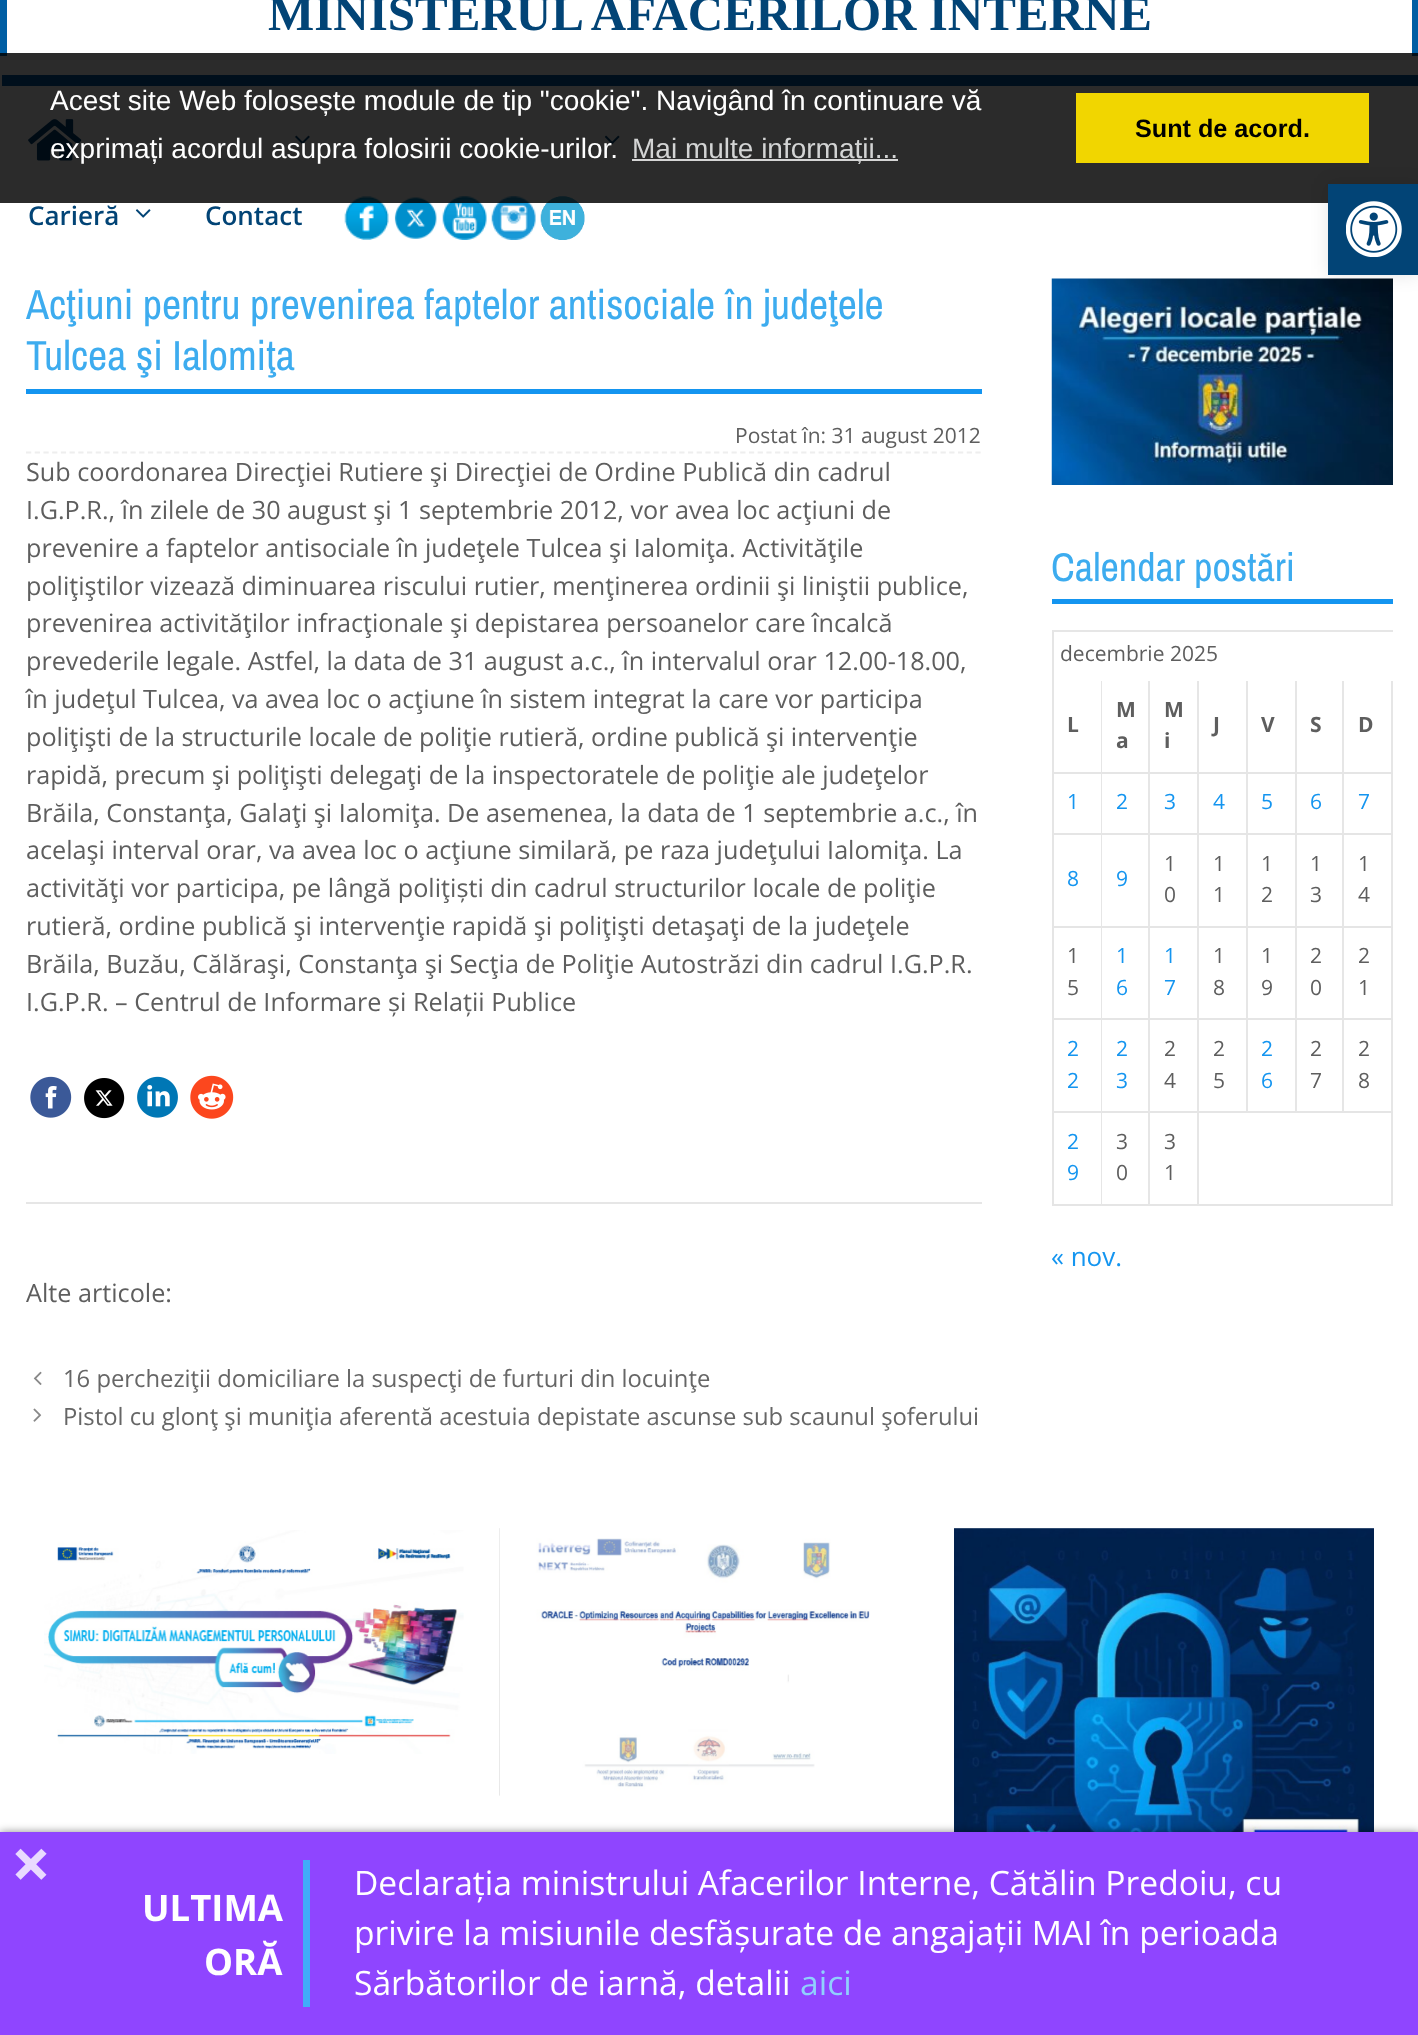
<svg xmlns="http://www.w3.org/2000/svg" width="1418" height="2035">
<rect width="100%" height="100%" fill="#fff"/>
<rect x="1412" width="6" height="56" fill="#005ea4"/>
<rect width="7" height="56" fill="#005ea4"/>
<text x="268" y="30" style="font-family:Liberation Serif;font-size:49px;font-weight:bold;fill:#024476">MINISTERUL AFACERILOR INTERNE</text>
<rect x="2" y="75" width="1416" height="11" fill="#005da4"/>
<image x="28" y="119" width="54" height="42" href="media/1.png"/>
<image x="295" y="135" width="15" height="10" href="media/2.png"/>
<image x="604" y="135" width="16" height="10" href="media/3.png"/>
<image x="344" y="196" width="45" height="44" href="media/5.png"/>
<image x="394" y="197" width="43" height="42" href="media/6.png"/>
<image x="442" y="196" width="45" height="44" href="media/7.png"/>
<image x="491" y="196" width="45" height="44" href="media/8.png"/>
<image x="540" y="196" width="45" height="44" href="media/9.png"/>
<rect y="53" width="1418" height="150" fill="#000000d4"/>
<text x="50" y="110" style="font-family:Liberation Sans;font-size:28px;fill:#fff">Acest site Web folosește module de tip "cookie". Navigând în continuare vă</text>
<text x="50" y="158" style="font-family:Liberation Sans;font-size:28px;fill:#fff">exprimați acordul asupra folosirii cookie-urilor.</text>
<rect x="632" y="159" width="266" height="2" fill="#d5d5d5"/>
<text x="632" y="158" style="font-family:Liberation Sans;font-size:28px;fill:#d3d4d4">Mai multe informații...</text>
<rect x="1076" y="93" width="293" height="70" fill="#f1d600"/>
<text x="1135" y="137" style="font-family:Liberation Sans;font-size:25.2px;font-weight:bold;fill:#000">Sunt de acord.</text>
<text x="28" y="225" style="font-family:Open Sans;font-size:26px;font-weight:600;fill:#024476">Carieră</text>
<image x="135" y="209" width="16" height="9" href="media/4.png"/>
<text x="205" y="225" style="font-family:Open Sans;font-size:26px;font-weight:600;fill:#024476">Contact</text>
<image x="1051" y="278" width="342" height="207" href="media/17.png"/>
<rect x="1328" y="184" width="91" height="91" fill="#0000001a" filter="blur(9px)"/>
<rect x="1328" y="184" width="90" height="91" fill="#024476"/>
<image x="1346" y="201" width="56" height="56" href="media/10.png"/>
<rect x="26" y="389" width="956" height="5" fill="#1495f0"/>
<text x="26" y="319" style="font-family:Archivo Narrow;font-size:42px;fill:#3dacef">Acţiuni pentru prevenirea faptelor antisociale în judeţele</text>
<text x="26" y="370" style="font-family:Archivo Narrow;font-size:42px;fill:#3dacef">Tulcea şi Ialomiţa</text>
<path d="M26 452.5h956" fill="none" stroke="#eee" stroke-width="1.8" stroke-dasharray="5.25 3.46"/>
<text x="735" y="443" style="font-family:Open Sans;font-size:21px;fill:#5e5e5e">Postat în: 31 august 2012</text>
<text x="26" y="481" style="font-family:Open Sans;font-size:25.2px;fill:#5e5e5e">Sub coordonarea Direcţiei Rutiere şi Direcţiei de Ordine Publică din cadrul</text>
<text x="26" y="519" style="font-family:Open Sans;font-size:25.2px;fill:#5e5e5e">I.G.P.R., în zilele de 30 august şi 1 septembrie 2012, vor avea loc acţiuni de</text>
<text x="26" y="557" style="font-family:Open Sans;font-size:25.2px;fill:#5e5e5e">prevenire a faptelor antisociale în judeţele Tulcea şi Ialomiţa. Activităţile</text>
<text x="26" y="595" style="font-family:Open Sans;font-size:25.2px;fill:#5e5e5e">poliţiştilor vizează diminuarea riscului rutier, menţinerea ordinii şi liniştii publice,</text>
<text x="26" y="632" style="font-family:Open Sans;font-size:25.2px;fill:#5e5e5e">prevenirea activităţilor infracţionale şi depistarea persoanelor care încalcă</text>
<text x="26" y="670" style="font-family:Open Sans;font-size:25.2px;fill:#5e5e5e">prevederile legale. Astfel, la data de 31 august a.c., în intervalul orar 12.00-18.00,</text>
<text x="26" y="708" style="font-family:Open Sans;font-size:25.2px;fill:#5e5e5e">în judeţul Tulcea, va avea loc o acţiune în sistem integrat la care vor participa</text>
<text x="26" y="746" style="font-family:Open Sans;font-size:25.2px;fill:#5e5e5e">poliţişti de la structurile locale de poliţie rutieră, ordine publică şi intervenţie</text>
<text x="26" y="784" style="font-family:Open Sans;font-size:25.2px;fill:#5e5e5e">rapidă, precum şi poliţişti delegaţi de la inspectoratele de poliţie ale judeţelor</text>
<text x="26" y="822" style="font-family:Open Sans;font-size:25.2px;fill:#5e5e5e">Brăila, Constanţa, Galaţi şi Ialomiţa. De asemenea, la data de 1 septembrie a.c., în</text>
<text x="26" y="859" style="font-family:Open Sans;font-size:25.2px;fill:#5e5e5e">acelaşi interval orar, va avea loc o acţiune similară, pe raza judeţului Ialomiţa. La</text>
<text x="26" y="897" style="font-family:Open Sans;font-size:25.2px;fill:#5e5e5e">activităţi vor participa, pe lângă poliţiști din cadrul structurilor locale de poliţie</text>
<text x="26" y="935" style="font-family:Open Sans;font-size:25.2px;fill:#5e5e5e">rutieră, ordine publică şi intervenţie rapidă şi poliţişti detaşaţi de la judeţele</text>
<text x="26" y="973" style="font-family:Open Sans;font-size:25.2px;fill:#5e5e5e">Brăila, Buzău, Călăraşi, Constanţa şi Secţia de Poliţie Autostrăzi din cadrul I.G.P.R.</text>
<text x="26" y="1011" style="font-family:Open Sans;font-size:25.2px;fill:#5e5e5e">I.G.P.R. – Centrul de Informare și Relații Publice</text>
<image x="30" y="1076" width="42" height="42" href="media/11.png"/>
<image x="84" y="1078" width="41" height="41" href="media/12.png"/>
<image x="137" y="1076" width="41" height="42" href="media/13.png"/>
<image x="190" y="1075" width="44" height="44" href="media/14.png"/>
<rect x="26" y="1202" width="956" height="2" fill="#e6e6e6"/>
<text x="26" y="1302" style="font-family:Open Sans;font-size:25.2px;fill:#5e5e5e">Alte articole:</text>
<image x="33" y="1371" width="9" height="14" href="media/15.png"/>
<text x="63" y="1387" style="font-family:Open Sans;font-size:23.8px;fill:#666">16 percheziţii domiciliare la suspecţi de furturi din locuinţe</text>
<image x="33" y="1408" width="9" height="14" href="media/16.png"/>
<text x="63" y="1425" style="font-family:Open Sans;font-size:23.8px;fill:#666">Pistol cu glonţ şi muniţia aferentă acestuia depistate ascunse sub scaunul şoferului</text>
<rect x="1052" y="599" width="341" height="5" fill="#1495f0"/>
<text x="1051" y="581" style="font-family:Archivo Narrow;font-size:40.25px;fill:#3dacef">Calendar postări</text>
<path d="M1052 630h341v2h-339z" fill="#e6e6e6"/>
<path d="M1052 1206v-576l2 2v574z" fill="#0000001a"/>
<text x="1060" y="661" style="font-family:Open Sans;font-size:21px;fill:#5e5e5e">decembrie 2025</text>
<path d="M1102 681v93l-1-2v-91z" fill="#e6e6e6"/>
<path d="M1102 774h-48v-2h47z" fill="#0000001a"/>
<text x="1067" y="732" style="font-family:Open Sans;font-size:21px;font-weight:bold;fill:#5e5e5e">L</text>
<path d="M1150 681v93l-2-2v-91z" fill="#e6e6e6"/>
<path d="M1150 774h-48v-2h46z" fill="#0000001a"/>
<text x="1116" y="717" style="font-family:Open Sans;font-size:21px;font-weight:bold;fill:#5e5e5e">M</text>
<text x="1116" y="748" style="font-family:Open Sans;font-size:21px;font-weight:bold;fill:#5e5e5e">a</text>
<path d="M1199 681v93l-2-2v-91z" fill="#e6e6e6"/>
<path d="M1199 774h-49v-2h47z" fill="#0000001a"/>
<text x="1164" y="717" style="font-family:Open Sans;font-size:21px;font-weight:bold;fill:#5e5e5e">M</text>
<text x="1164" y="748" style="font-family:Open Sans;font-size:21px;font-weight:bold;fill:#5e5e5e">i</text>
<path d="M1248 681v93l-2-2v-91z" fill="#e6e6e6"/>
<path d="M1248 774h-49v-2h47z" fill="#0000001a"/>
<text x="1213" y="732" style="font-family:Open Sans;font-size:21px;font-weight:bold;fill:#5e5e5e">J</text>
<path d="M1297 681v93l-2-2v-91z" fill="#e6e6e6"/>
<path d="M1297 774h-49v-2h47z" fill="#0000001a"/>
<text x="1261" y="732" style="font-family:Open Sans;font-size:21px;font-weight:bold;fill:#5e5e5e">V</text>
<path d="M1344 681v93l-2-2v-91z" fill="#e6e6e6"/>
<path d="M1344 774h-47v-2h45z" fill="#0000001a"/>
<text x="1310" y="732" style="font-family:Open Sans;font-size:21px;font-weight:bold;fill:#5e5e5e">S</text>
<path d="M1393 681v93l-2-2v-91z" fill="#e6e6e6"/>
<path d="M1393 774h-49v-2h47z" fill="#0000001a"/>
<text x="1358" y="732" style="font-family:Open Sans;font-size:21px;font-weight:bold;fill:#5e5e5e">D</text>
<path d="M1102 774v61l-1-2v-59z" fill="#e6e6e6"/>
<path d="M1102 835h-48v-2h47z" fill="#0000001a"/>
<text x="1067" y="809" style="font-family:Open Sans;font-size:21px;fill:#1495f0">1</text>
<path d="M1150 774v61l-2-2v-59z" fill="#e6e6e6"/>
<path d="M1150 835h-48v-2h46z" fill="#0000001a"/>
<text x="1116" y="809" style="font-family:Open Sans;font-size:21px;fill:#1495f0">2</text>
<path d="M1199 774v61l-2-2v-59z" fill="#e6e6e6"/>
<path d="M1199 835h-49v-2h47z" fill="#0000001a"/>
<text x="1164" y="809" style="font-family:Open Sans;font-size:21px;fill:#1495f0">3</text>
<path d="M1248 774v61l-2-2v-59z" fill="#e6e6e6"/>
<path d="M1248 835h-49v-2h47z" fill="#0000001a"/>
<text x="1213" y="809" style="font-family:Open Sans;font-size:21px;fill:#1495f0">4</text>
<path d="M1297 774v61l-2-2v-59z" fill="#e6e6e6"/>
<path d="M1297 835h-49v-2h47z" fill="#0000001a"/>
<text x="1261" y="809" style="font-family:Open Sans;font-size:21px;fill:#1495f0">5</text>
<path d="M1344 774v61l-2-2v-59z" fill="#e6e6e6"/>
<path d="M1344 835h-47v-2h45z" fill="#0000001a"/>
<text x="1310" y="809" style="font-family:Open Sans;font-size:21px;fill:#1495f0">6</text>
<path d="M1393 774v61l-2-2v-59z" fill="#e6e6e6"/>
<path d="M1393 835h-49v-2h47z" fill="#0000001a"/>
<text x="1358" y="809" style="font-family:Open Sans;font-size:21px;fill:#1495f0">7</text>
<path d="M1102 835v93l-1-2v-91z" fill="#e6e6e6"/>
<path d="M1102 928h-48v-2h47z" fill="#0000001a"/>
<text x="1067" y="886" style="font-family:Open Sans;font-size:21px;fill:#1495f0">8</text>
<path d="M1150 835v93l-2-2v-91z" fill="#e6e6e6"/>
<path d="M1150 928h-48v-2h46z" fill="#0000001a"/>
<text x="1116" y="886" style="font-family:Open Sans;font-size:21px;fill:#1495f0">9</text>
<path d="M1199 835v93l-2-2v-91z" fill="#e6e6e6"/>
<path d="M1199 928h-49v-2h47z" fill="#0000001a"/>
<text x="1164" y="871" style="font-family:Open Sans;font-size:21px;fill:#5e5e5e">1</text>
<text x="1164" y="902" style="font-family:Open Sans;font-size:21px;fill:#5e5e5e">0</text>
<path d="M1248 835v93l-2-2v-91z" fill="#e6e6e6"/>
<path d="M1248 928h-49v-2h47z" fill="#0000001a"/>
<text x="1213" y="871" style="font-family:Open Sans;font-size:21px;fill:#5e5e5e">1</text>
<text x="1213" y="902" style="font-family:Open Sans;font-size:21px;fill:#5e5e5e">1</text>
<path d="M1297 835v93l-2-2v-91z" fill="#e6e6e6"/>
<path d="M1297 928h-49v-2h47z" fill="#0000001a"/>
<text x="1261" y="871" style="font-family:Open Sans;font-size:21px;fill:#5e5e5e">1</text>
<text x="1261" y="902" style="font-family:Open Sans;font-size:21px;fill:#5e5e5e">2</text>
<path d="M1344 835v93l-2-2v-91z" fill="#e6e6e6"/>
<path d="M1344 928h-47v-2h45z" fill="#0000001a"/>
<text x="1310" y="871" style="font-family:Open Sans;font-size:21px;fill:#5e5e5e">1</text>
<text x="1310" y="902" style="font-family:Open Sans;font-size:21px;fill:#5e5e5e">3</text>
<path d="M1393 835v93l-2-2v-91z" fill="#e6e6e6"/>
<path d="M1393 928h-49v-2h47z" fill="#0000001a"/>
<text x="1358" y="871" style="font-family:Open Sans;font-size:21px;fill:#5e5e5e">1</text>
<text x="1358" y="902" style="font-family:Open Sans;font-size:21px;fill:#5e5e5e">4</text>
<path d="M1102 928v92l-1-2v-90z" fill="#e6e6e6"/>
<path d="M1102 1020h-48v-2h47z" fill="#0000001a"/>
<text x="1067" y="963" style="font-family:Open Sans;font-size:21px;fill:#5e5e5e">1</text>
<text x="1067" y="995" style="font-family:Open Sans;font-size:21px;fill:#5e5e5e">5</text>
<path d="M1150 928v92l-2-2v-90z" fill="#e6e6e6"/>
<path d="M1150 1020h-48v-2h46z" fill="#0000001a"/>
<text x="1116" y="963" style="font-family:Open Sans;font-size:21px;fill:#1495f0">1</text>
<text x="1116" y="995" style="font-family:Open Sans;font-size:21px;fill:#1495f0">6</text>
<path d="M1199 928v92l-2-2v-90z" fill="#e6e6e6"/>
<path d="M1199 1020h-49v-2h47z" fill="#0000001a"/>
<text x="1164" y="963" style="font-family:Open Sans;font-size:21px;fill:#1495f0">1</text>
<text x="1164" y="995" style="font-family:Open Sans;font-size:21px;fill:#1495f0">7</text>
<path d="M1248 928v92l-2-2v-90z" fill="#e6e6e6"/>
<path d="M1248 1020h-49v-2h47z" fill="#0000001a"/>
<text x="1213" y="963" style="font-family:Open Sans;font-size:21px;fill:#5e5e5e">1</text>
<text x="1213" y="995" style="font-family:Open Sans;font-size:21px;fill:#5e5e5e">8</text>
<path d="M1297 928v92l-2-2v-90z" fill="#e6e6e6"/>
<path d="M1297 1020h-49v-2h47z" fill="#0000001a"/>
<text x="1261" y="963" style="font-family:Open Sans;font-size:21px;fill:#5e5e5e">1</text>
<text x="1261" y="995" style="font-family:Open Sans;font-size:21px;fill:#5e5e5e">9</text>
<path d="M1344 928v92l-2-2v-90z" fill="#e6e6e6"/>
<path d="M1344 1020h-47v-2h45z" fill="#0000001a"/>
<text x="1310" y="963" style="font-family:Open Sans;font-size:21px;fill:#5e5e5e">2</text>
<text x="1310" y="995" style="font-family:Open Sans;font-size:21px;fill:#5e5e5e">0</text>
<path d="M1393 928v92l-2-2v-90z" fill="#e6e6e6"/>
<path d="M1393 1020h-49v-2h47z" fill="#0000001a"/>
<text x="1358" y="963" style="font-family:Open Sans;font-size:21px;fill:#5e5e5e">2</text>
<text x="1358" y="995" style="font-family:Open Sans;font-size:21px;fill:#5e5e5e">1</text>
<path d="M1102 1020v93l-1-2v-91z" fill="#e6e6e6"/>
<path d="M1102 1113h-48v-2h47z" fill="#0000001a"/>
<text x="1067" y="1056" style="font-family:Open Sans;font-size:21px;fill:#1495f0">2</text>
<text x="1067" y="1088" style="font-family:Open Sans;font-size:21px;fill:#1495f0">2</text>
<path d="M1150 1020v93l-2-2v-91z" fill="#e6e6e6"/>
<path d="M1150 1113h-48v-2h46z" fill="#0000001a"/>
<text x="1116" y="1056" style="font-family:Open Sans;font-size:21px;fill:#1495f0">2</text>
<text x="1116" y="1088" style="font-family:Open Sans;font-size:21px;fill:#1495f0">3</text>
<path d="M1199 1020v93l-2-2v-91z" fill="#e6e6e6"/>
<path d="M1199 1113h-49v-2h47z" fill="#0000001a"/>
<text x="1164" y="1056" style="font-family:Open Sans;font-size:21px;fill:#5e5e5e">2</text>
<text x="1164" y="1088" style="font-family:Open Sans;font-size:21px;fill:#5e5e5e">4</text>
<path d="M1248 1020v93l-2-2v-91z" fill="#e6e6e6"/>
<path d="M1248 1113h-49v-2h47z" fill="#0000001a"/>
<text x="1213" y="1056" style="font-family:Open Sans;font-size:21px;fill:#5e5e5e">2</text>
<text x="1213" y="1088" style="font-family:Open Sans;font-size:21px;fill:#5e5e5e">5</text>
<path d="M1297 1020v93l-2-2v-91z" fill="#e6e6e6"/>
<path d="M1297 1113h-49v-2h47z" fill="#0000001a"/>
<text x="1261" y="1056" style="font-family:Open Sans;font-size:21px;fill:#1495f0">2</text>
<text x="1261" y="1088" style="font-family:Open Sans;font-size:21px;fill:#1495f0">6</text>
<path d="M1344 1020v93l-2-2v-91z" fill="#e6e6e6"/>
<path d="M1344 1113h-47v-2h45z" fill="#0000001a"/>
<text x="1310" y="1056" style="font-family:Open Sans;font-size:21px;fill:#5e5e5e">2</text>
<text x="1310" y="1088" style="font-family:Open Sans;font-size:21px;fill:#5e5e5e">7</text>
<path d="M1393 1020v93l-2-2v-91z" fill="#e6e6e6"/>
<path d="M1393 1113h-49v-2h47z" fill="#0000001a"/>
<text x="1358" y="1056" style="font-family:Open Sans;font-size:21px;fill:#5e5e5e">2</text>
<text x="1358" y="1088" style="font-family:Open Sans;font-size:21px;fill:#5e5e5e">8</text>
<path d="M1102 1113v93l-1-2v-91z" fill="#e6e6e6"/>
<path d="M1102 1206h-48v-2h47z" fill="#0000001a"/>
<text x="1067" y="1149" style="font-family:Open Sans;font-size:21px;fill:#1495f0">2</text>
<text x="1067" y="1180" style="font-family:Open Sans;font-size:21px;fill:#1495f0">9</text>
<path d="M1150 1113v93l-2-2v-91z" fill="#e6e6e6"/>
<path d="M1150 1206h-48v-2h46z" fill="#0000001a"/>
<text x="1116" y="1149" style="font-family:Open Sans;font-size:21px;fill:#5e5e5e">3</text>
<text x="1116" y="1180" style="font-family:Open Sans;font-size:21px;fill:#5e5e5e">0</text>
<path d="M1199 1113v93l-2-2v-91z" fill="#e6e6e6"/>
<path d="M1199 1206h-49v-2h47z" fill="#0000001a"/>
<text x="1164" y="1149" style="font-family:Open Sans;font-size:21px;fill:#5e5e5e">3</text>
<text x="1164" y="1180" style="font-family:Open Sans;font-size:21px;fill:#5e5e5e">1</text>
<path d="M1393 1113v93l-2-2v-91z" fill="#e6e6e6"/>
<path d="M1393 1206h-194v-2h192z" fill="#0000001a"/>
<text x="1051" y="1266" style="font-family:Open Sans;font-size:26px;fill:#1495f0">« nov.</text>
<image x="44" y="1530" width="420" height="224" href="media/18.png"/>
<image x="499" y="1528" width="371" height="268" href="media/19.png"/>
<image x="954" y="1528" width="420" height="304" href="media/20.png"/>
<rect y="1832" width="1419" height="203" fill="#00000073" filter="blur(4.5px)"/>
<rect y="1832" width="1418" height="203" fill="#8f45ff"/>
<text x="11" y="1889" style="font-family:Open Sans;font-size:70px;font-weight:bold;fill:#e9daff">×</text>
<rect x="303" y="1860" width="7" height="147" fill="#40acf9"/>
<text x="142" y="1921" style="font-family:Open Sans;font-size:36.5px;font-weight:bold;fill:#fff">ULTIMA</text>
<text x="204" y="1975" style="font-family:Open Sans;font-size:36.5px;font-weight:bold;fill:#fff">ORĂ</text>
<text x="354" y="1895" style="font-family:Open Sans;font-size:33.6px;fill:#fff">Declarația ministrului Afacerilor Interne, Cătălin Predoiu, cu</text>
<text x="354" y="1945" style="font-family:Open Sans;font-size:33.6px;fill:#fff">privire la misiunile desfășurate de angajații MAI în perioada</text>
<text x="354" y="1995" style="font-family:Open Sans;font-size:33.6px;fill:#fff">Sărbătorilor de iarnă, detalii</text>
<text x="800" y="1995" style="font-family:Open Sans;font-size:33.6px;fill:#90d0fd">aici</text>
</svg>
